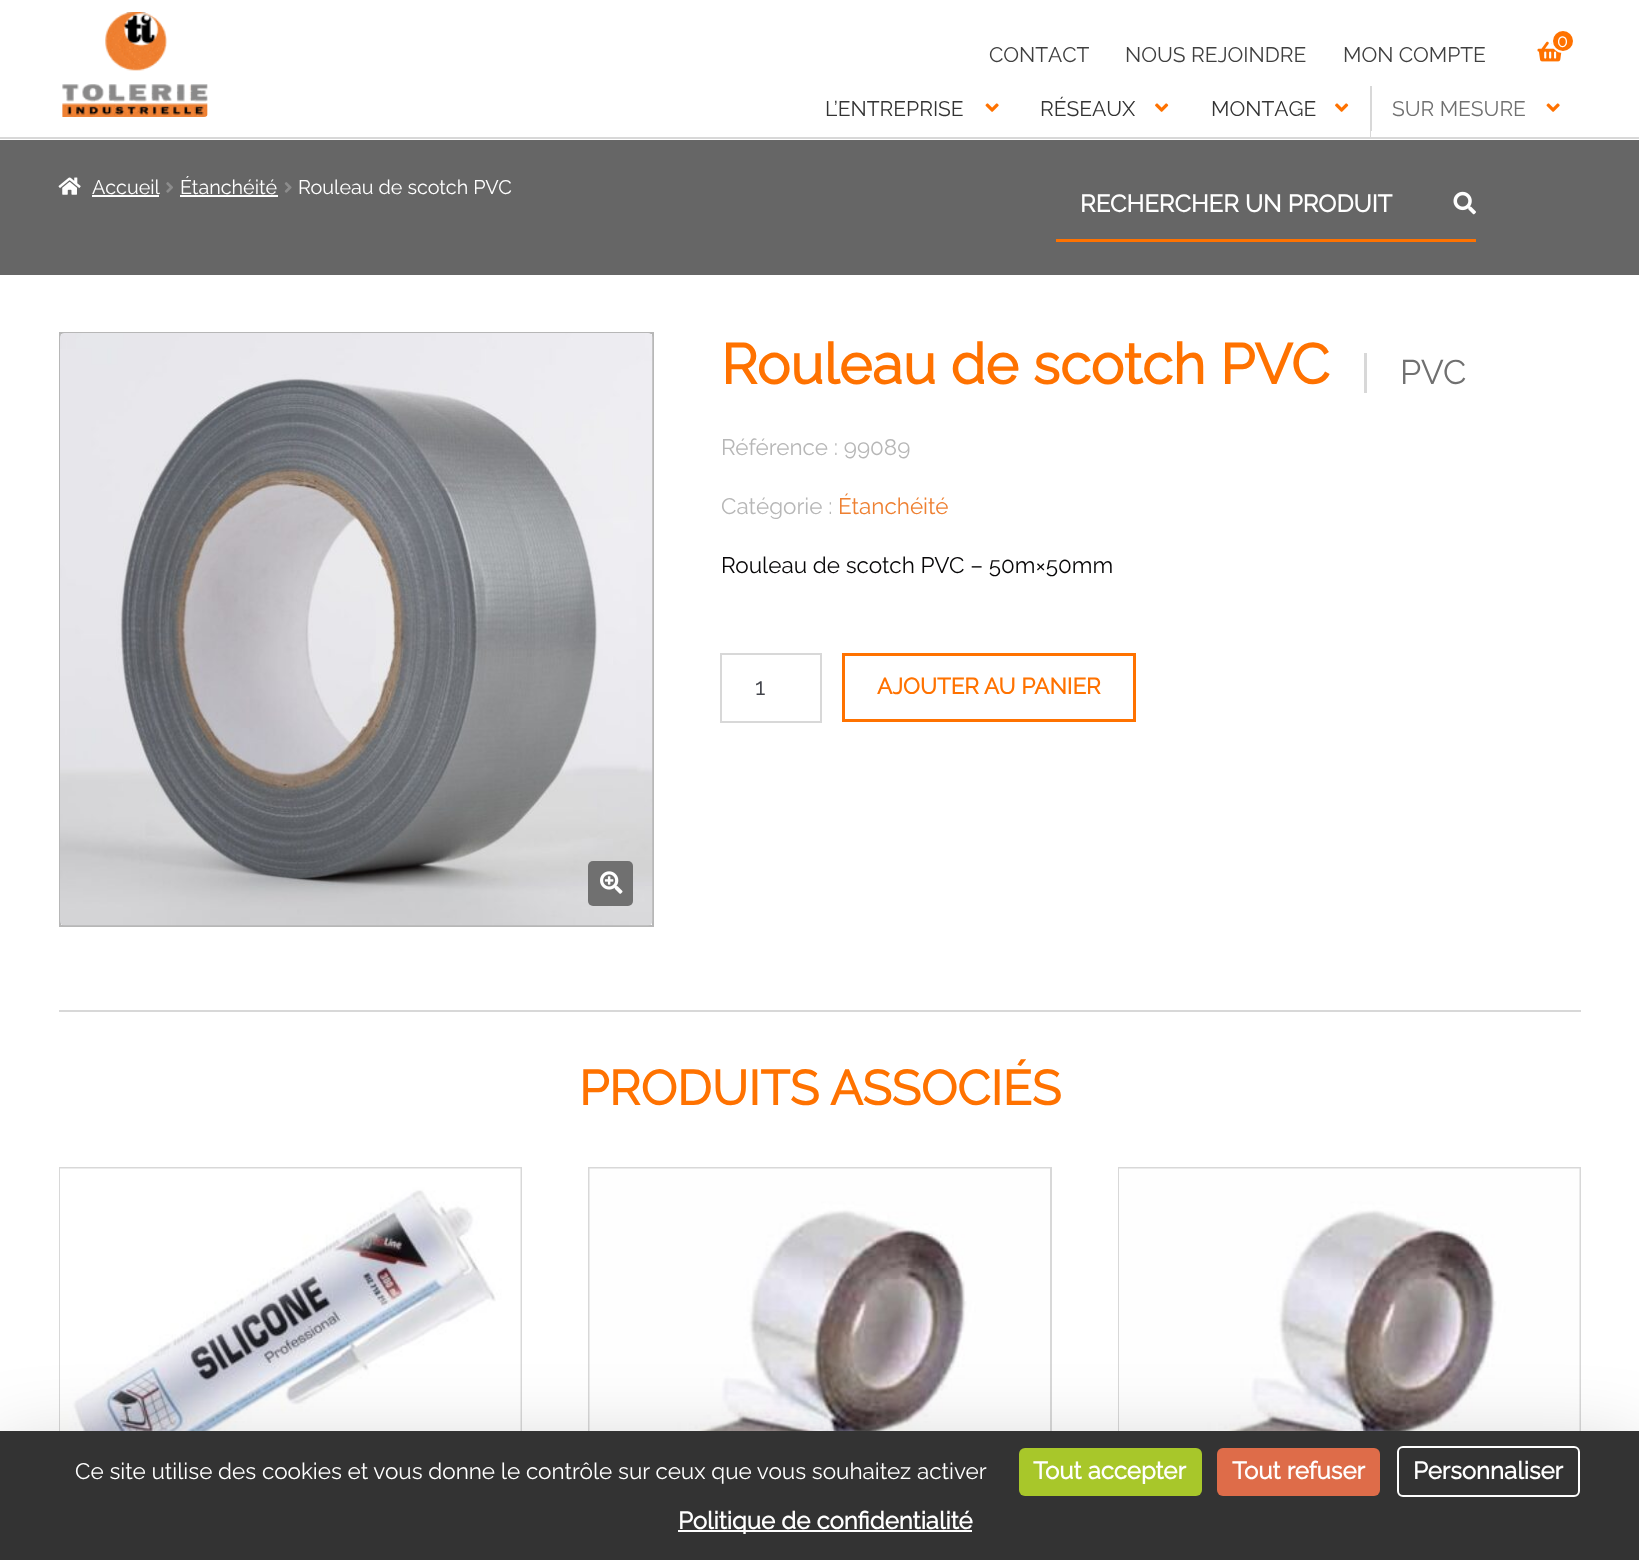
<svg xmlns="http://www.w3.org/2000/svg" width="1639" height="1560">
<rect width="100%" height="100%" fill="#fff"/>
<rect y="137" width="1639" height="2" fill="#d8d8d8"/>
<image x="62" y="12" width="146" height="105" href="media/1.png"/>
<image x="1537" y="41" width="25" height="21" href="media/2.png"/>
<circle cx="1563" cy="41" r="11" fill="#ff7200" stroke="#fff" stroke-width="2"/>
<text x="1557" y="47" style="font-family:Raleway;font-size:18px;font-weight:100;fill:#fff">0</text>
<text x="989" y="62" style="font-family:Raleway;font-size:21px;font-weight:100;fill:#404040">CONTACT</text>
<text x="1125" y="62" style="font-family:Raleway;font-size:21px;font-weight:100;fill:#404040">NOUS REJOINDRE</text>
<text x="1343" y="62" style="font-family:Raleway;font-size:21px;font-weight:100;fill:#404040">MON COMPTE</text>
<text x="825" y="116" style="font-family:Raleway;font-size:21px;font-weight:100;fill:#333">L’ENTREPRISE</text>
<image x="985" y="103" width="14" height="9" href="media/3.png"/>
<text x="1040" y="116" style="font-family:Raleway;font-size:21px;font-weight:100;fill:#333">RÉSEAUX</text>
<image x="1155" y="103" width="14" height="9" href="media/4.png"/>
<text x="1211" y="116" style="font-family:Raleway;font-size:21px;font-weight:100;fill:#333">MONTAGE</text>
<image x="1335" y="103" width="14" height="9" href="media/4.png"/>
<rect x="1370" y="86" width="2" height="51" fill="#d8d8d8"/>
<rect x="1371" y="131" width="1" height="6" fill="#fff"/>
<text x="1392" y="116" style="font-family:Raleway;font-size:21px;font-weight:100;fill:#707070">SUR MESURE</text>
<image x="1546" y="103" width="14" height="9" href="media/3.png"/>
<rect y="140" width="1639" height="135" fill="#666"/>
<image x="58" y="177" width="23" height="18" href="media/5.png"/>
<text x="92" y="194" style="font-family:Raleway;font-size:19.75px;font-weight:100;fill:#fff">Accueil</text>
<rect x="92" y="195" width="67" height="2" fill="#fff"/>
<image x="166" y="182" width="7" height="11" href="media/6.png"/>
<text x="180" y="194" style="font-family:Raleway;font-size:19.75px;font-weight:100;fill:#fff">Étanchéité</text>
<rect x="180" y="195" width="98" height="2" fill="#fff"/>
<image x="284" y="182" width="8" height="11" href="media/7.png"/>
<text x="298" y="194" style="font-family:Raleway;font-size:19.75px;font-weight:100;fill:#fff">Rouleau de scotch PVC</text>
<rect x="1056" y="239" width="420" height="3" fill="#ff7200"/>
<text x="1080" y="212" style="font-family:Raleway;font-size:24px;font-weight:bold;fill:#fff">RECHERCHER UN PRODUIT</text>
<image x="1453" y="191" width="23" height="24" href="media/8.png"/>
<rect x="60" y="333" width="593" height="593" fill="none" stroke="#b7b7b7" stroke-width="2"/>
<image x="60" y="333" width="593" height="593" href="media/9.png"/>
<rect x="588" y="861" width="45" height="45" rx="5" fill="#707070"/>
<image x="600" y="871" width="23" height="23" href="media/10.png"/>
<text x="721" y="384" style="font-family:Raleway;font-size:56.25px;font-weight:bold;fill:#ff7200">Rouleau de scotch PVC</text>
<rect x="1364" y="353" width="3" height="40" fill="#d8d8d8"/>
<text x="1400" y="384" style="font-family:Raleway;font-size:34px;font-weight:100;fill:#707070">PVC</text>
<text x="721" y="455" style="font-family:Raleway;font-size:22.5px;font-weight:100;fill:#b7b7b7">Référence : 99089</text>
<text x="721" y="514" style="font-family:Raleway;font-size:22.5px;font-weight:100;fill:#b7b7b7">Catégorie :</text>
<text x="838" y="514" style="font-family:Raleway;font-size:22.5px;font-weight:100;fill:#ee8032">Étanchéité</text>
<text x="721" y="573" style="font-family:Raleway;font-size:22.5px;font-weight:100;fill:#070607">Rouleau de scotch PVC – 50m×50mm</text>
<rect x="721" y="654" width="100" height="68" fill="none" stroke="#d8d8d8" stroke-width="2"/>
<text x="755" y="695" style="font-family:Raleway;font-size:24px;font-weight:100;fill:#43454b">1</text>
<rect x="843.5" y="654.5" width="291" height="66" fill="none" stroke="#ff7200" stroke-width="3"/>
<text x="877" y="694" style="font-family:Raleway;font-size:22.5px;font-weight:bold;fill:#ff7200">AJOUTER AU PANIER</text>
<rect x="59" y="1010" width="1522" height="2" fill="#d8d8d8"/>
<text x="579" y="1105" style="font-family:Raleway;font-size:48.4px;font-weight:bold;fill:#ff7200">PRODUITS ASSOCIÉS</text>
<rect x="60" y="1168" width="461" height="348" fill="none" stroke="#d8d8d8" stroke-width="2"/>
<image x="60" y="1168" width="461" height="263" href="media/11.png"/>
<rect x="589" y="1168" width="462" height="348" fill="none" stroke="#d8d8d8" stroke-width="2"/>
<image x="589" y="1168" width="461" height="263" href="media/12.png"/>
<rect x="1119" y="1168" width="461" height="348" fill="none" stroke="#d8d8d8" stroke-width="2"/>
<image x="1119" y="1168" width="461" height="263" href="media/13.png"/>
<rect y="1461" width="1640" height="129" fill="#00000040" filter="blur(45px)"/>
<rect y="1431" width="1639" height="129" fill="#333"/>
<text x="75" y="1479" style="font-family:Raleway;font-size:22.5px;font-weight:100;fill:#fff">Ce site utilise des cookies et vous donne le contrôle sur ceux que vous souhaitez activer</text>
<rect x="1019" y="1448" width="183" height="48" rx="6" fill="#a8c72a"/>
<text x="1033" y="1479" style="font-family:Raleway;font-size:24px;font-weight:bold;fill:#fff">Tout accepter</text>
<rect x="1217" y="1448" width="163" height="48" rx="6" fill="#de6c49"/>
<text x="1232" y="1479" style="font-family:Raleway;font-size:24px;font-weight:bold;fill:#fff">Tout refuser</text>
<rect x="1398" y="1447" width="181" height="49" rx="5" fill="none" stroke="#fff" stroke-width="2"/>
<text x="1413" y="1479" style="font-family:Raleway;font-size:24px;font-weight:bold;fill:#fff">Personnaliser</text>
<rect x="678" y="1530" width="294" height="2" fill="#fff"/>
<text x="678" y="1529" style="font-family:Raleway;font-size:24px;font-weight:bold;fill:#fff">Politique de confidentialité</text>
</svg>
